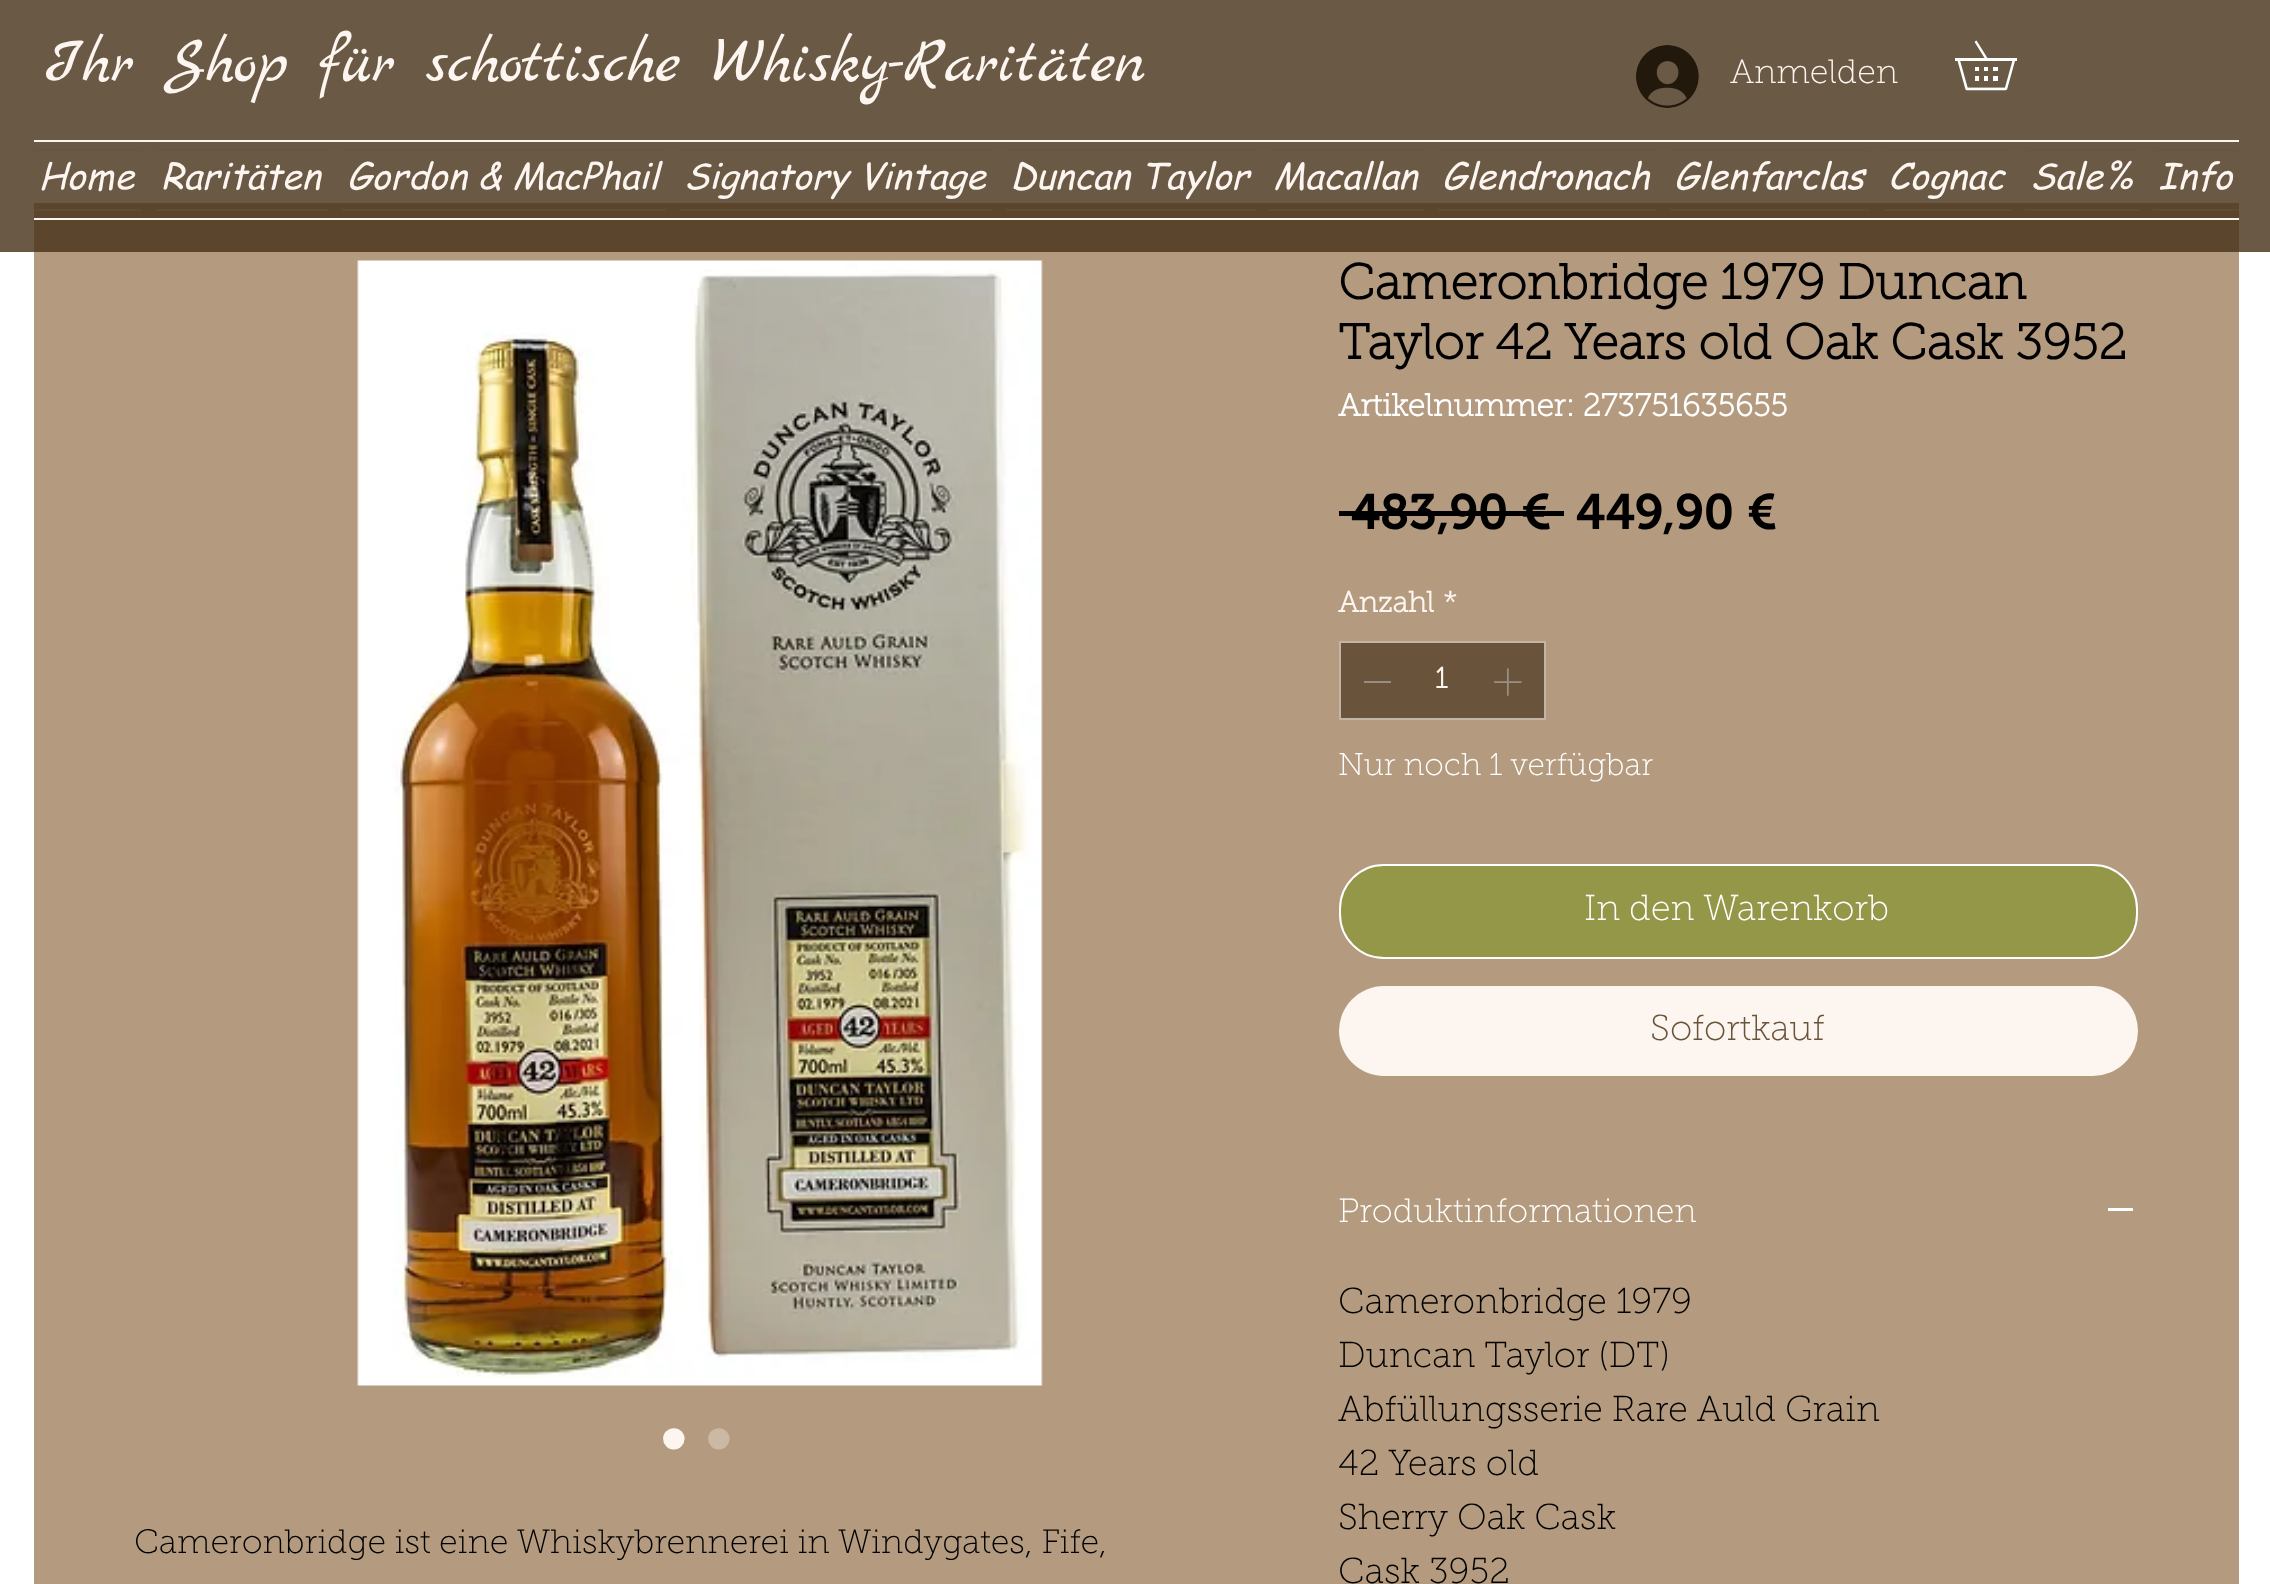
<svg xmlns="http://www.w3.org/2000/svg" width="2270" height="1584">
<rect width="100%" height="100%" fill="#fff"/>
<rect width="2270" height="252" fill="#6a5945"/>
<text x="44" y="81" style="font-family:Marck Script;font-size:65.25px;fill:#fdf6f0">Ihr Shop für schottische Whisky-Raritäten</text>
<image x="1636" y="45" width="63" height="63" href="media/1.png"/>
<text x="1730" y="83" style="font-family:'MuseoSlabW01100';font-size:33.75px;font-weight:100;fill:#fdf6f0">Anmelden</text>
<image x="1955" y="40" width="62" height="51" href="media/2.png"/>
<rect x="34" y="140" width="2205" height="2" fill="#fdf6f0"/>
<rect x="34" y="149" width="108" height="2" fill="#6a5741"/>
<rect x="34" y="203" width="2205" height="49" fill="#5b452c"/>
<rect x="34" y="209" width="108" height="2" fill="#614b31"/>
<text x="39" y="189" style="font-family:'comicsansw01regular';font-size:36px;font-style:italic;fill:#fdf6f0">Home</text>
<rect x="155" y="149" width="174" height="2" fill="#6a5741"/>
<rect x="155" y="209" width="174" height="2" fill="#614b31"/>
<text x="161" y="189" style="font-family:'comicsansw01regular';font-size:36px;font-style:italic;fill:#fdf6f0">Raritäten</text>
<rect x="342" y="149" width="324" height="2" fill="#6a5741"/>
<rect x="342" y="209" width="324" height="2" fill="#614b31"/>
<text x="347" y="189" style="font-family:'comicsansw01regular';font-size:36px;font-style:italic;fill:#fdf6f0">Gordon &amp; MacPhail</text>
<rect x="680" y="149" width="312" height="2" fill="#6a5741"/>
<rect x="680" y="209" width="312" height="2" fill="#614b31"/>
<text x="684" y="189" style="font-family:'comicsansw01regular';font-size:36px;font-style:italic;fill:#fdf6f0">Signatory Vintage</text>
<rect x="1006" y="149" width="250" height="2" fill="#6a5741"/>
<rect x="1006" y="209" width="250" height="2" fill="#614b31"/>
<text x="1010" y="189" style="font-family:'comicsansw01regular';font-size:36px;font-style:italic;fill:#fdf6f0">Duncan Taylor</text>
<rect x="1269" y="149" width="155" height="2" fill="#6a5741"/>
<rect x="1269" y="209" width="155" height="2" fill="#614b31"/>
<text x="1273" y="189" style="font-family:'comicsansw01regular';font-size:36px;font-style:italic;fill:#fdf6f0">Macallan</text>
<rect x="1438" y="149" width="218" height="2" fill="#6a5741"/>
<rect x="1438" y="209" width="218" height="2" fill="#614b31"/>
<text x="1442" y="189" style="font-family:'comicsansw01regular';font-size:36px;font-style:italic;fill:#fdf6f0">Glendronach</text>
<rect x="1670" y="149" width="200" height="2" fill="#6a5741"/>
<rect x="1670" y="209" width="200" height="2" fill="#614b31"/>
<text x="1674" y="189" style="font-family:'comicsansw01regular';font-size:36px;font-style:italic;fill:#fdf6f0">Glenfarclas</text>
<rect x="1883" y="149" width="129" height="2" fill="#6a5741"/>
<rect x="1883" y="209" width="129" height="2" fill="#614b31"/>
<text x="1888" y="189" style="font-family:'comicsansw01regular';font-size:36px;font-style:italic;fill:#fdf6f0">Cognac</text>
<rect x="2025" y="149" width="115" height="2" fill="#6a5741"/>
<rect x="2025" y="209" width="115" height="2" fill="#614b31"/>
<text x="2030" y="189" style="font-family:'comicsansw01regular';font-size:36px;font-style:italic;fill:#fdf6f0">Sale%</text>
<rect x="2153" y="149" width="86" height="2" fill="#6a5741"/>
<rect x="2153" y="209" width="86" height="2" fill="#614b31"/>
<text x="2158" y="189" style="font-family:'comicsansw01regular';font-size:36px;font-style:italic;fill:#fdf6f0">Info</text>
<rect x="34" y="218" width="2205" height="2" fill="#fdf6f0"/>
<rect x="34" y="252" width="2205" height="1332" fill="#b49b7f"/>
<image x="357" y="260" width="686" height="1126" href="media/3.png"/>
<text x="660" y="1465" style="font-family:Liberation Sans;font-size:79px;fill:#fdf6f0">•</text>
<text x="705" y="1465" style="font-family:Liberation Sans;font-size:79px;fill:#cbb9a5">•</text>
<text x="134" y="1553" style="font-family:'MuseoSlabW01100';font-size:33.75px;font-weight:100;fill:#000">Cameronbridge ist eine Whiskybrennerei in Windygates, Fife,</text>
<text x="1338" y="299" style="font-family:'MuseoSlabW01100';font-size:49.5px;font-weight:bold;fill:#000">Cameronbridge 1979 Duncan</text>
<text x="1338" y="359" style="font-family:'MuseoSlabW01100';font-size:49.5px;font-weight:bold;fill:#000">Taylor 42 Years old Oak Cask 3952</text>
<text x="1338" y="416" style="font-family:'MuseoSlabW01100';font-size:31.5px;font-weight:bold;fill:#fff">Artikelnummer: 273751635655</text>
<text x="1351" y="529" style="font-family:'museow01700';font-size:49.5px;font-weight:600;fill:#000">483,90 €</text>
<rect x="1339" y="511" width="225" height="5" fill="#000"/>
<text x="1576" y="529" style="font-family:'museow01700';font-size:49.5px;font-weight:600;fill:#000">449,90 €</text>
<text x="1338" y="612" style="font-family:'MuseoSlabW01100';font-size:29px;font-weight:bold;fill:#fdf6f0">Anzahl</text>
<text x="1443" y="612" style="font-family:'MuseoSlabW01100';font-size:29px;font-weight:bold;fill:#fdf6f0">*</text>
<rect x="1340" y="642" width="205" height="77" fill="#69533a" stroke="#c2b5a7" stroke-width="2"/>
<rect x="1364" y="681" width="27" height="2" fill="#988d81"/>
<text x="1435" y="688" style="font-family:'MuseoSlabW01100';font-size:29px;font-weight:bold;fill:#fdf6f0">1</text>
<image x="1494" y="668" width="28" height="28" href="media/4.png"/>
<text x="1338" y="775" style="font-family:'MuseoSlabW01100';font-size:31.5px;font-weight:100;fill:#fff">Nur noch 1 verfügbar</text>
<rect x="1340" y="865" width="797" height="93" rx="44" fill="#959748" stroke="#fff" stroke-width="2"/>
<text x="1584" y="920" style="font-family:'MuseoSlabW01100';font-size:36px;font-weight:100;fill:#fff">In den Warenkorb</text>
<rect x="1339" y="986" width="799" height="90" rx="45" fill="#fdf6f0"/>
<text x="1650" y="1040" style="font-family:'MuseoSlabW01100';font-size:36px;font-weight:100;fill:#69533a">Sofortkauf</text>
<text x="1338" y="1222" style="font-family:'MuseoSlabW01100';font-size:33.75px;font-weight:100;fill:#fff">Produktinformationen</text>
<rect x="2108" y="1208" width="25" height="3" fill="#fff"/>
<text x="1338" y="1313" style="font-family:'MuseoSlabW01100';font-size:36px;font-weight:100;fill:#000">Cameronbridge 1979</text>
<text x="1338" y="1367" style="font-family:'MuseoSlabW01100';font-size:36px;font-weight:100;fill:#000">Duncan Taylor (DT)</text>
<text x="1338" y="1421" style="font-family:'MuseoSlabW01100';font-size:36px;font-weight:100;fill:#000">Abfüllungsserie Rare Auld Grain</text>
<text x="1338" y="1475" style="font-family:'MuseoSlabW01100';font-size:36px;font-weight:100;fill:#000">42 Years old</text>
<text x="1338" y="1529" style="font-family:'MuseoSlabW01100';font-size:36px;font-weight:100;fill:#000">Sherry Oak Cask</text>
<text x="1338" y="1583" style="font-family:'MuseoSlabW01100';font-size:36px;font-weight:100;fill:#000">Cask 3952</text>
</svg>
